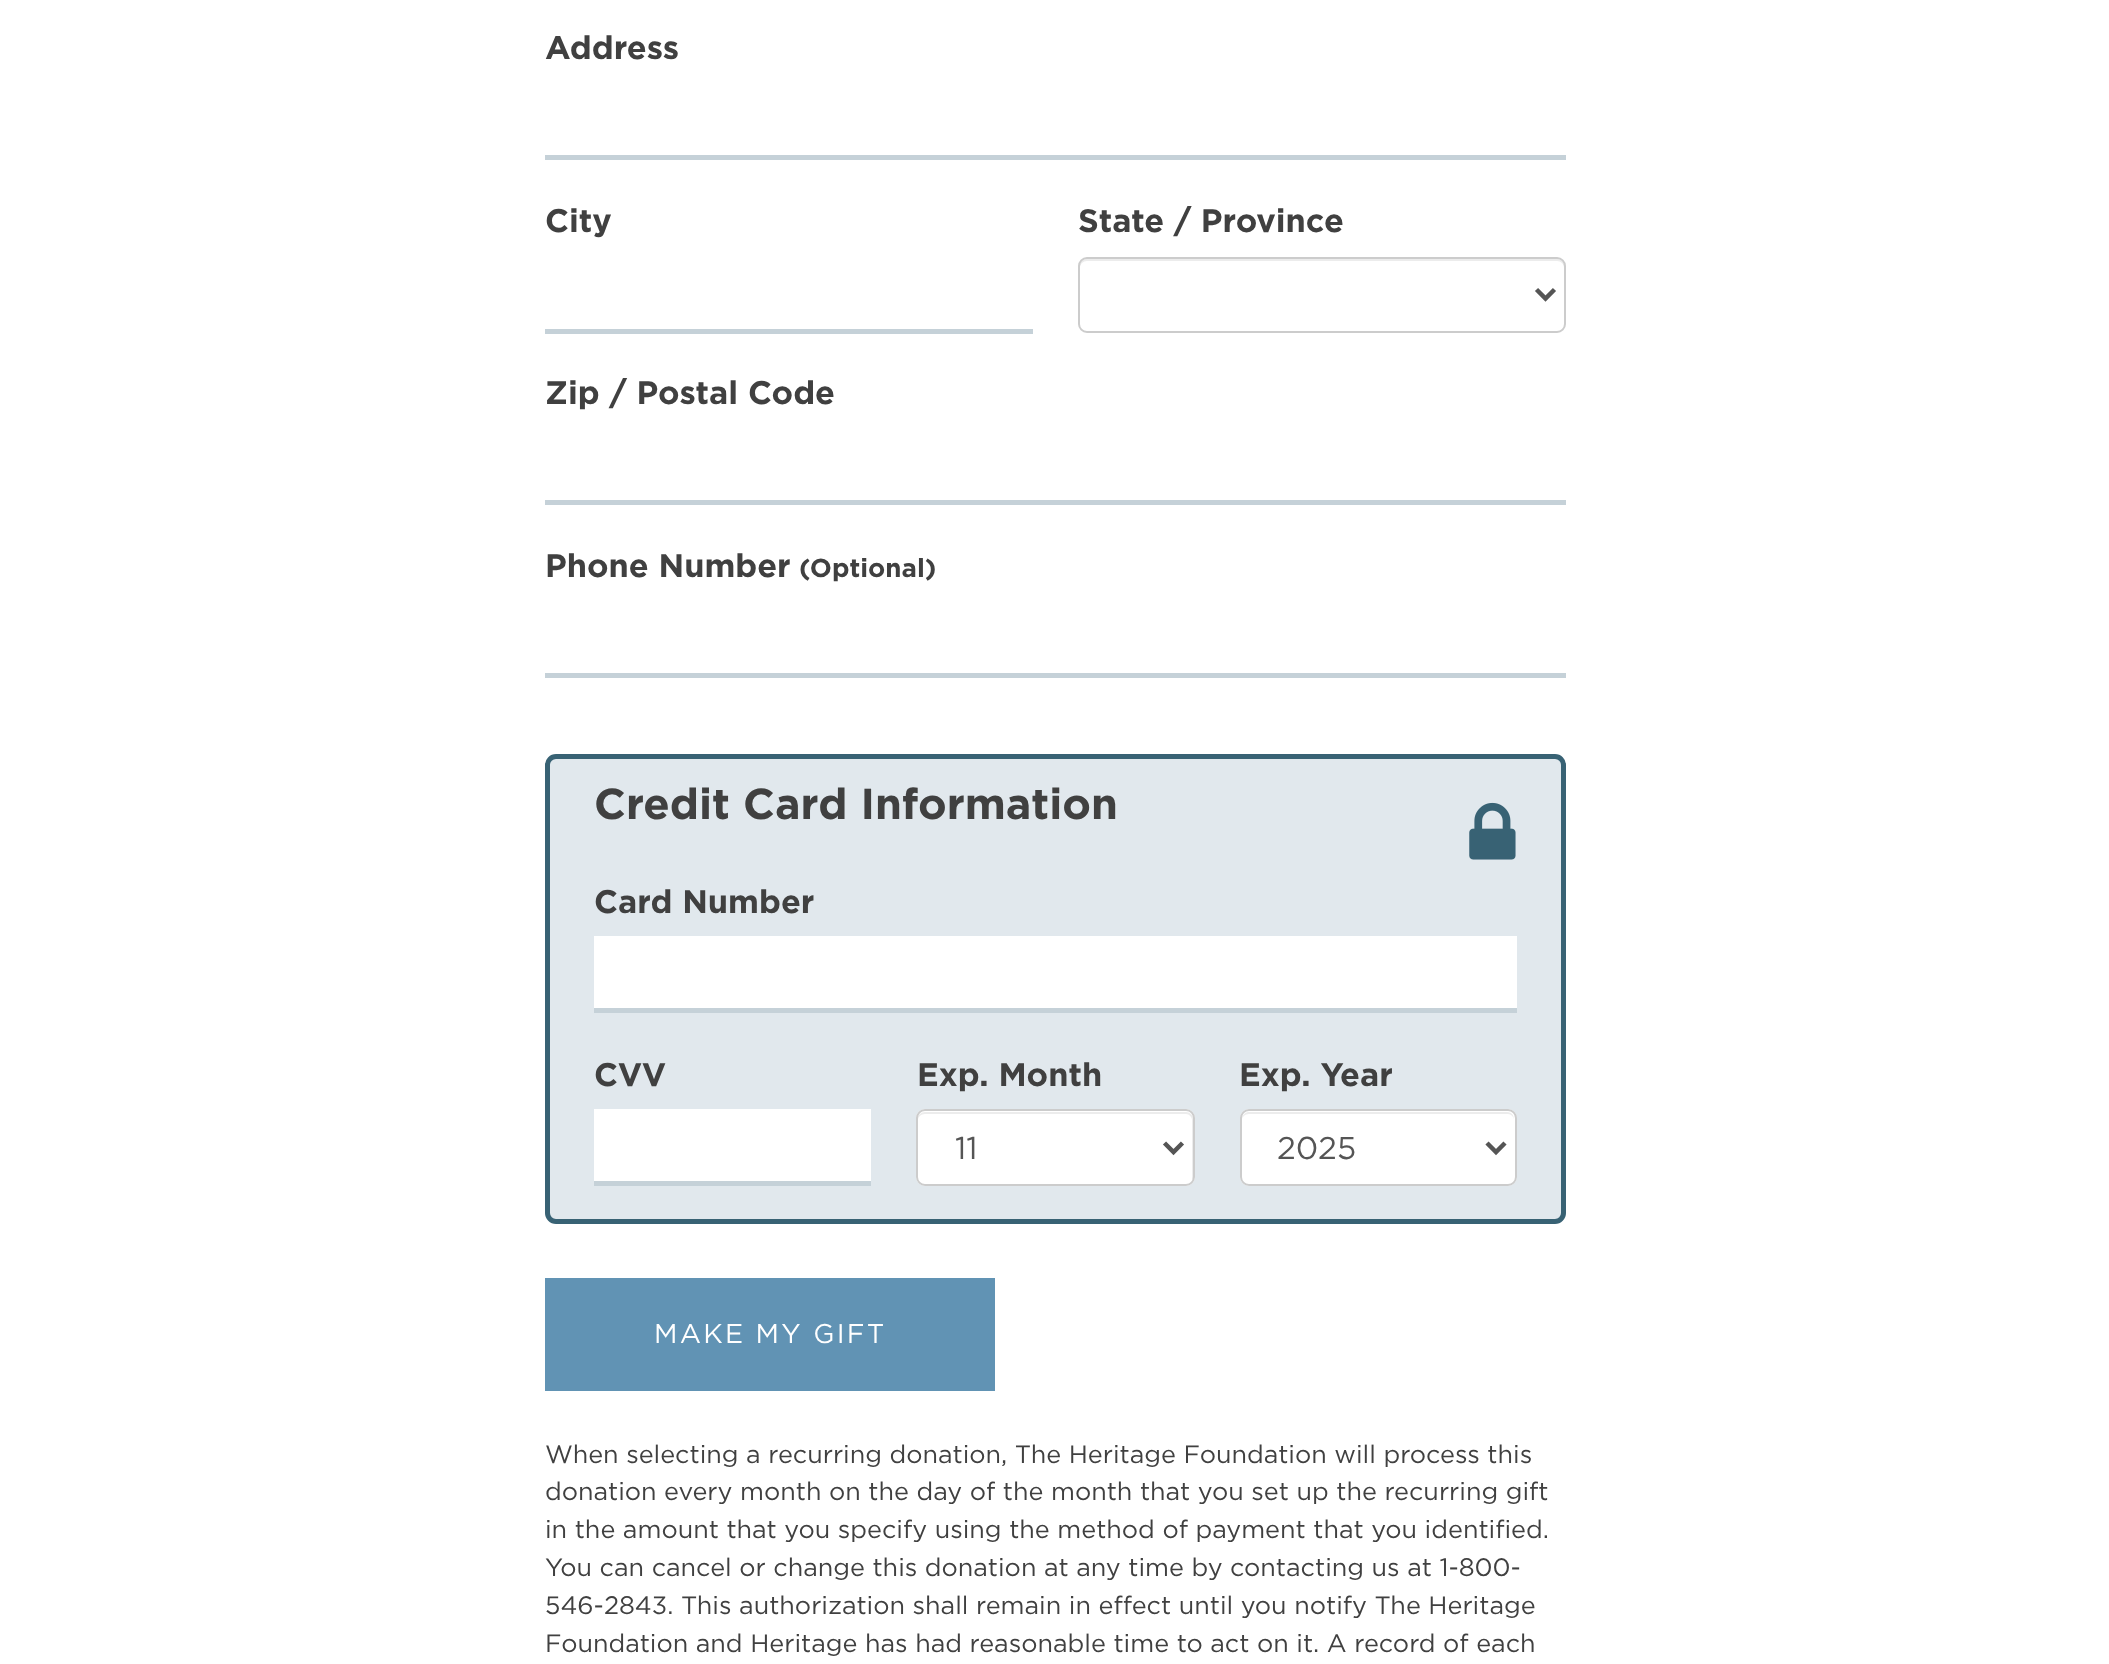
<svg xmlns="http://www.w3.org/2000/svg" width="2109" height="1664">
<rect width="100%" height="100%" fill="#fff"/>
<text x="545" y="59" style="font-family:Gotham;font-size:32.5px;font-weight:bold;fill:#404040">Address</text>
<rect x="545" y="155" width="1021" height="5" fill="#c5d1d8"/>
<text x="545" y="232" style="font-family:Gotham;font-size:32.5px;font-weight:bold;fill:#404040">City</text>
<rect x="545" y="329" width="488" height="5" fill="#c5d1d8"/>
<text x="1078" y="232" style="font-family:Gotham;font-size:32.5px;font-weight:bold;fill:#404040">State / Province</text>
<path d="M1087 261h470c4 0 7 3 7 7v-2c0-4-3-7-7-7h-470c-4 0-7 3-7 7v2c0-4 3-7 7-7z" fill="#ececec"/>
<rect x="1079" y="258" width="486" height="74" rx="8" fill="none" stroke="#ccc" stroke-width="2"/>
<path d="M1536.5 289.5l9 9l9-9" fill="none" stroke="#555" stroke-width="4.5"/>
<text x="545" y="404" style="font-family:Gotham;font-size:32.5px;font-weight:bold;fill:#404040">Zip / Postal Code</text>
<rect x="545" y="500" width="1021" height="5" fill="#c5d1d8"/>
<text x="545" y="577" style="font-family:Gotham;font-size:32.5px;font-weight:bold;fill:#404040">Phone Number</text>
<text x="799" y="577" style="font-family:Gotham;font-size:26px;font-weight:bold;fill:#404040">(Optional)</text>
<rect x="545" y="673" width="1021" height="5" fill="#c5d1d8"/>
<rect x="547.5" y="756.5" width="1016" height="465" rx="8.5" fill="#e1e8ed" stroke="#386274" stroke-width="5"/>
<text x="594" y="819" style="font-family:Gotham;font-size:43.25px;font-weight:bold;fill:#404040">Credit Card Information</text>
<image x="1469" y="802" width="47" height="58" href="media/1.png"/>
<text x="594" y="913" style="font-family:Gotham;font-size:32.5px;font-weight:bold;fill:#404040">Card Number</text>
<rect x="594" y="936" width="923" height="72" fill="#fff"/>
<rect x="594" y="1008" width="923" height="5" fill="#c5d1d8"/>
<text x="594" y="1086" style="font-family:Gotham;font-size:32.5px;font-weight:bold;fill:#404040">CVV</text>
<rect x="594" y="1109" width="277" height="72" fill="#fff"/>
<rect x="594" y="1181" width="277" height="5" fill="#c5d1d8"/>
<text x="917" y="1086" style="font-family:Gotham;font-size:32.5px;font-weight:bold;fill:#404040">Exp. Month</text>
<rect x="916" y="1109" width="279" height="77" rx="9" fill="#fff"/>
<path d="M925 1114h261c3 0 6 3 6 6v61c1-1 1-3 1-4v-58c0-4-3-7-7-7h-261c-4 0-7 3-7 7v1c0-3 3-6 7-6z" fill="#ececec"/>
<rect x="917" y="1110" width="277" height="75" rx="8" fill="none" stroke="#ccc" stroke-width="2"/>
<path d="M1164.5 1143l9 9l9-9" fill="none" stroke="#555" stroke-width="4.5"/>
<text x="955" y="1159" style="font-family:Gotham;font-size:31.5px;fill:#555">11</text>
<text x="1239" y="1086" style="font-family:Gotham;font-size:32.5px;font-weight:bold;fill:#404040">Exp. Year</text>
<rect x="1240" y="1109" width="277" height="77" rx="9" fill="#fff"/>
<path d="M1249 1114h259c3 0 6 3 6 6c0-4-2-8-7-8h-259c-4 1-6 4-6 8c0-3 3-6 7-6z" fill="#ececec"/>
<rect x="1241" y="1110" width="275" height="75" rx="8" fill="none" stroke="#ccc" stroke-width="2"/>
<path d="M1487 1143l9 9l9-9" fill="none" stroke="#555" stroke-width="4.5"/>
<text x="1277" y="1159" style="font-family:Gotham;font-size:31.5px;fill:#555">2025</text>
<rect x="545" y="1278" width="450" height="113" fill="#6193b4"/>
<text x="654" y="1343" style="font-family:Gotham;font-size:27px;letter-spacing:2.25px;fill:#fff">MAKE MY GIFT</text>
<text x="545" y="1463" style="font-family:Gotham;font-size:25.2px;fill:#404040">When selecting a recurring donation, The Heritage Foundation will process this</text>
<text x="545" y="1500" style="font-family:Gotham;font-size:25.2px;fill:#404040">donation every month on the day of the month that you set up the recurring gift</text>
<text x="545" y="1538" style="font-family:Gotham;font-size:25.2px;fill:#404040">in the amount that you specify using the method of payment that you identified.</text>
<text x="545" y="1576" style="font-family:Gotham;font-size:25.2px;fill:#404040">You can cancel or change this donation at any time by contacting us at 1-800-</text>
<text x="545" y="1614" style="font-family:Gotham;font-size:25.2px;fill:#404040">546-2843. This authorization shall remain in effect until you notify The Heritage</text>
<text x="545" y="1652" style="font-family:Gotham;font-size:25.2px;fill:#404040">Foundation and Heritage has had reasonable time to act on it. A record of each</text>
</svg>
